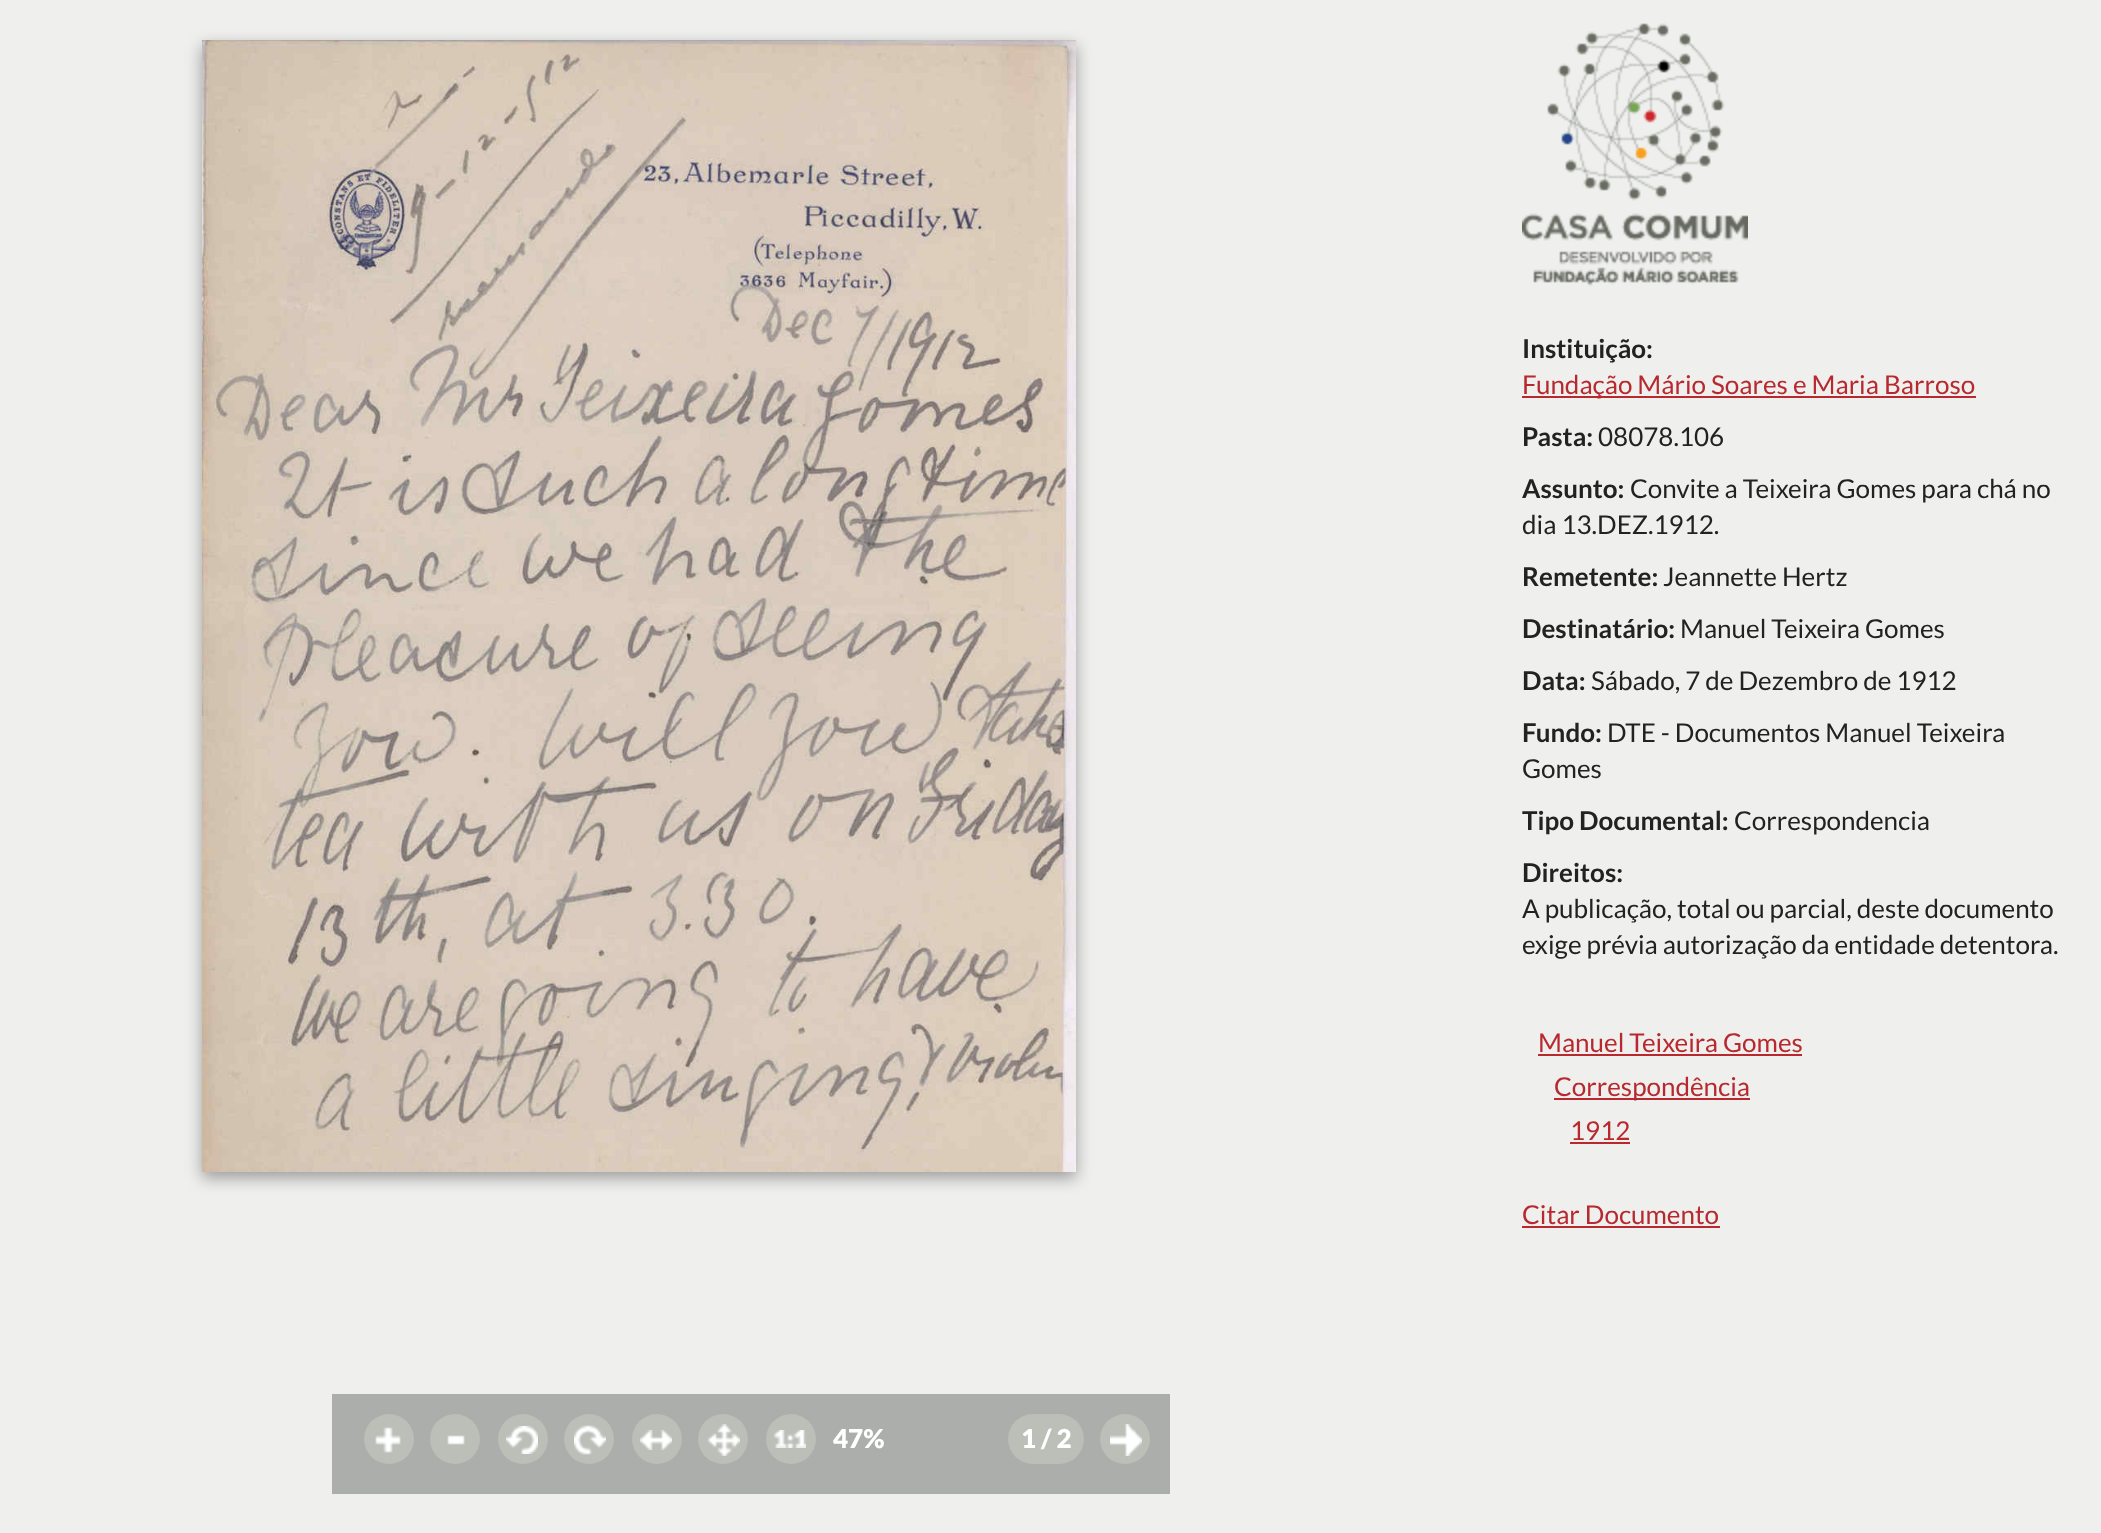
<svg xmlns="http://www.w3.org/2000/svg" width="2101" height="1533">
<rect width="100%" height="100%" fill="#eff0ee"/>
<rect x="202" y="46" width="874" height="1132" fill="#00000059" filter="blur(8px)"/>
<image x="202" y="40" width="874" height="1132" href="media/1.png"/>
<image x="1522" y="23" width="226" height="264" href="media/2.png"/>
<text x="1522" y="358" style="font-family:Lato;font-size:26px;font-weight:bold;fill:#222">Instituição:</text>
<rect x="1522" y="396" width="454" height="2" fill="#b8292f"/>
<text x="1522" y="394" style="font-family:Lato;font-size:26px;fill:#b8292f">Fundação Mário Soares e Maria Barroso</text>
<text x="1522" y="446" style="font-family:Lato;font-size:26px;font-weight:bold;fill:#222">Pasta:</text>
<text x="1598" y="446" style="font-family:Lato;font-size:26px;fill:#222">08078.106</text>
<text x="1522" y="498" style="font-family:Lato;font-size:26px;font-weight:bold;fill:#222">Assunto:</text>
<text x="1630" y="498" style="font-family:Lato;font-size:26px;fill:#222">Convite a Teixeira Gomes para chá no</text>
<text x="1522" y="534" style="font-family:Lato;font-size:26px;fill:#222">dia 13.DEZ.1912.</text>
<text x="1522" y="586" style="font-family:Lato;font-size:26px;font-weight:bold;fill:#222">Remetente:</text>
<text x="1663" y="586" style="font-family:Lato;font-size:26px;fill:#222">Jeannette Hertz</text>
<text x="1522" y="638" style="font-family:Lato;font-size:26px;font-weight:bold;fill:#222">Destinatário:</text>
<text x="1680" y="638" style="font-family:Lato;font-size:26px;fill:#222">Manuel Teixeira Gomes</text>
<text x="1522" y="690" style="font-family:Lato;font-size:26px;font-weight:bold;fill:#222">Data:</text>
<text x="1591" y="690" style="font-family:Lato;font-size:26px;fill:#222">Sábado, 7 de Dezembro de 1912</text>
<text x="1522" y="742" style="font-family:Lato;font-size:26px;font-weight:bold;fill:#222">Fundo:</text>
<text x="1607" y="742" style="font-family:Lato;font-size:26px;fill:#222">DTE - Documentos Manuel Teixeira</text>
<text x="1522" y="778" style="font-family:Lato;font-size:26px;fill:#222">Gomes</text>
<text x="1522" y="830" style="font-family:Lato;font-size:26px;font-weight:bold;fill:#222">Tipo Documental:</text>
<text x="1734" y="830" style="font-family:Lato;font-size:26px;fill:#222">Correspondencia</text>
<text x="1522" y="882" style="font-family:Lato;font-size:26px;font-weight:bold;fill:#222">Direitos:</text>
<text x="1522" y="918" style="font-family:Lato;font-size:26px;fill:#222">A publicação, total ou parcial, deste documento</text>
<text x="1522" y="954" style="font-family:Lato;font-size:26px;fill:#222">exige prévia autorização da entidade detentora.</text>
<text x="1538" y="1052" style="font-family:Lato;font-size:26px;fill:#b8292f">Manuel Teixeira Gomes</text>
<rect x="1538" y="1054" width="264" height="2" fill="#b8292f"/>
<rect x="1554" y="1098" width="196" height="2" fill="#b8292f"/>
<text x="1554" y="1096" style="font-family:Lato;font-size:26px;fill:#b8292f">Correspondência</text>
<text x="1570" y="1140" style="font-family:Lato;font-size:26px;fill:#b8292f">1912</text>
<rect x="1570" y="1142" width="60" height="2" fill="#b8292f"/>
<text x="1522" y="1224" style="font-family:Lato;font-size:26px;fill:#b8292f">Citar Documento</text>
<rect x="1522" y="1226" width="198" height="2" fill="#b8292f"/>
<rect x="332" y="1394" width="838" height="100" fill="#acaeac"/>
<circle cx="389" cy="1439" r="25" fill="#bcbeb8"/>
<image x="375" y="1427" width="26" height="26" href="media/3.png"/>
<circle cx="455" cy="1439" r="25" fill="#bcbeb8"/>
<image x="447" y="1435" width="18" height="10" href="media/4.png"/>
<circle cx="523" cy="1439" r="25" fill="#bcbeb8"/>
<image x="506" y="1426" width="32" height="28" href="media/5.png"/>
<circle cx="589" cy="1439" r="25" fill="#bcbeb8"/>
<image x="574" y="1425" width="32" height="30" href="media/6.png"/>
<circle cx="657" cy="1439" r="25" fill="#bcbeb8"/>
<image x="640" y="1430" width="32" height="20" href="media/7.png"/>
<circle cx="723" cy="1439" r="25" fill="#bcbeb8"/>
<image x="708" y="1424" width="32" height="32" href="media/8.png"/>
<circle cx="791" cy="1439" r="25" fill="#bcbeb8"/>
<image x="774" y="1430" width="32" height="18" href="media/9.png"/>
<text x="833" y="1448" style="font-family:Lato;font-size:26px;font-weight:900;fill:#fff">47%</text>
<rect x="1008" y="1414" width="76" height="50" rx="25" fill="#bcbeb8"/>
<text x="1021" y="1448" style="font-family:Lato;font-size:26px;font-weight:900;fill:#fff">1 / 2</text>
<circle cx="1125" cy="1439" r="25" fill="#bcbeb8"/>
<image x="1110" y="1424" width="32" height="32" href="media/10.png"/>
</svg>
